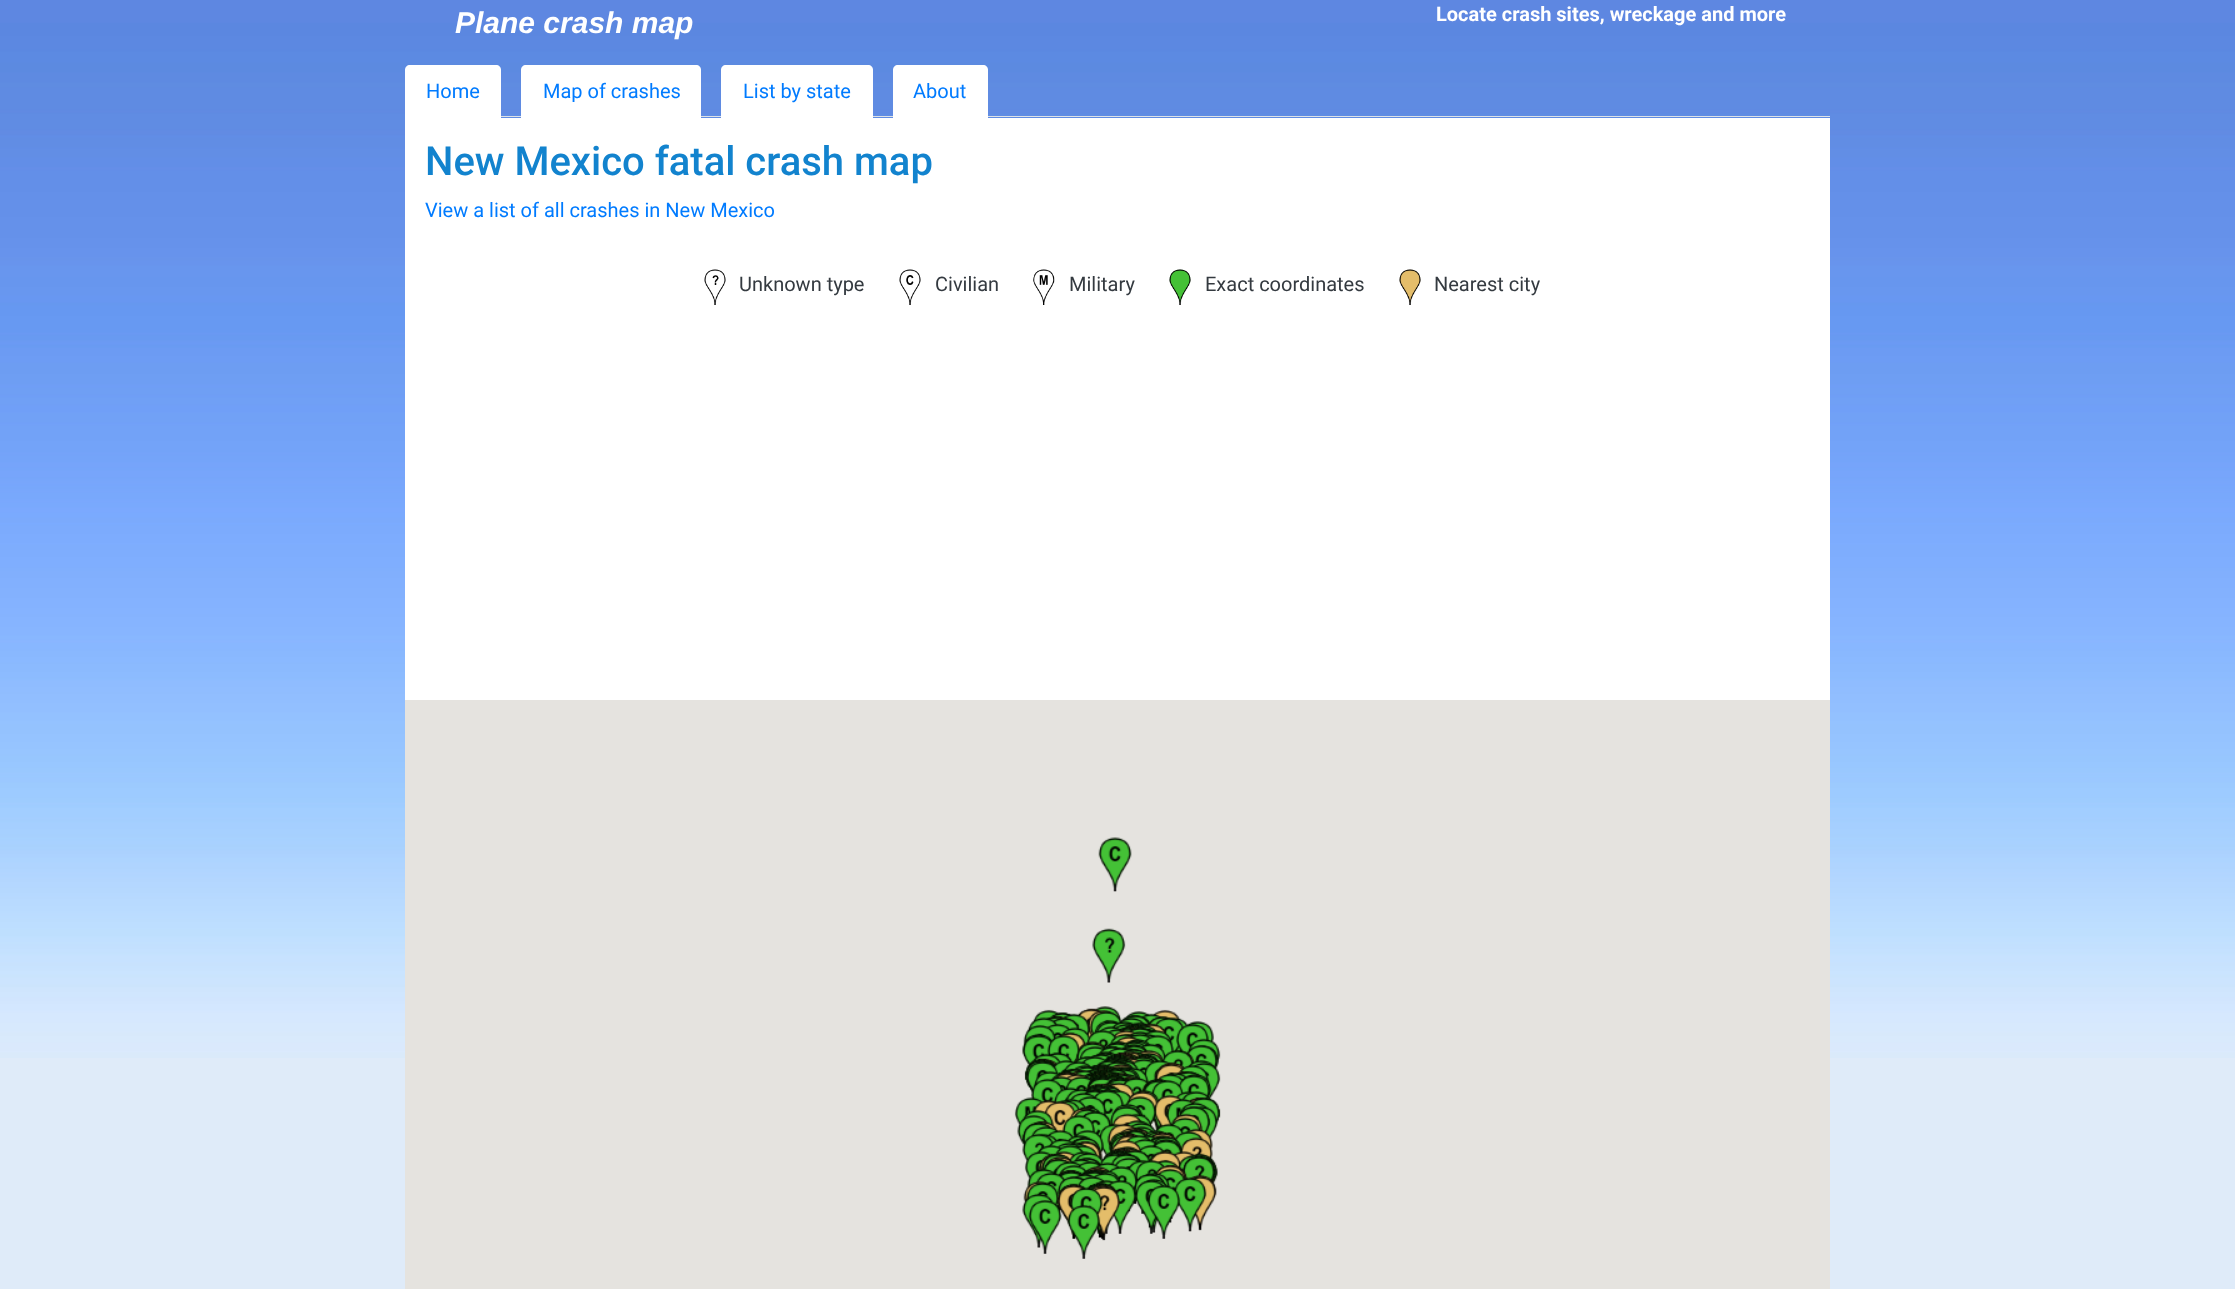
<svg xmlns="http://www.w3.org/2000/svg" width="2235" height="1289">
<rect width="100%" height="100%" fill="#dfebf9"/>
<image x="0" y="0" width="2235" height="1058" href="media/1.png"/>
<text x="455" y="33" style="font-family:Liberation Sans;font-size:30px;font-weight:bold;font-style:italic;fill:#fff">Plane crash map</text>
<text x="1436" y="21" style="font-family:Roboto;font-size:20px;font-weight:bold;fill:#fff">Locate crash sites, wreckage and more</text>
<rect x="501" y="116" width="1329" height="1" fill="#dee2e6"/>
<path d="M410 65h86c3 0 5 2 5 5v48h-96v-48c0-3 2-5 5-5z" fill="#fff"/>
<text x="426" y="98" style="font-family:Roboto;font-size:20px;fill:#007bff">Home</text>
<path d="M526 65h170c3 0 5 2 5 5v48h-180v-48c0-3 2-5 5-5z" fill="#fff"/>
<text x="543" y="98" style="font-family:Roboto;font-size:20px;fill:#007bff">Map of crashes</text>
<path d="M726 65h142c3 0 5 2 5 5v48h-152v-48c0-3 2-5 5-5z" fill="#fff"/>
<text x="743" y="98" style="font-family:Roboto;font-size:20px;fill:#007bff">List by state</text>
<path d="M898 65h85c3 0 5 2 5 5v48h-95v-48c0-3 2-5 5-5z" fill="#fff"/>
<text x="913" y="98" style="font-family:Roboto;font-size:20px;fill:#007bff">About</text>
<rect x="405" y="118" width="1425" height="582" fill="#fff"/>
<text x="425" y="175" style="font-family:Roboto;font-size:40px;font-weight:500;fill:#1283ce">New Mexico fatal crash map</text>
<text x="425" y="217" style="font-family:Roboto;font-size:20px;fill:#007bff">View a list of all crashes in New Mexico</text>
<image x="704" y="269" width="22" height="36" href="media/2.png"/>
<text x="739" y="291" style="font-family:Roboto;font-size:20px;fill:#343a40">Unknown type</text>
<image x="899" y="269" width="22" height="36" href="media/3.png"/>
<text x="935" y="291" style="font-family:Roboto;font-size:20px;fill:#343a40">Civilian</text>
<image x="1033" y="269" width="22" height="36" href="media/4.png"/>
<text x="1069" y="291" style="font-family:Roboto;font-size:20px;fill:#343a40">Military</text>
<image x="1169" y="269" width="22" height="36" href="media/5.png"/>
<text x="1205" y="291" style="font-family:Roboto;font-size:20px;fill:#343a40">Exact coordinates</text>
<image x="1399" y="269" width="22" height="36" href="media/6.png"/>
<text x="1434" y="291" style="font-family:Roboto;font-size:20px;fill:#343a40">Nearest city</text>
<rect x="405" y="700" width="1425" height="589" fill="#e5e3df"/>
<image x="1098" y="837" width="34" height="55" href="media/7.png"/>
<image x="1014" y="928" width="207" height="307" href="media/8.png"/>
<image x="1034" y="1235" width="132" height="24" href="media/9.png"/>
</svg>
